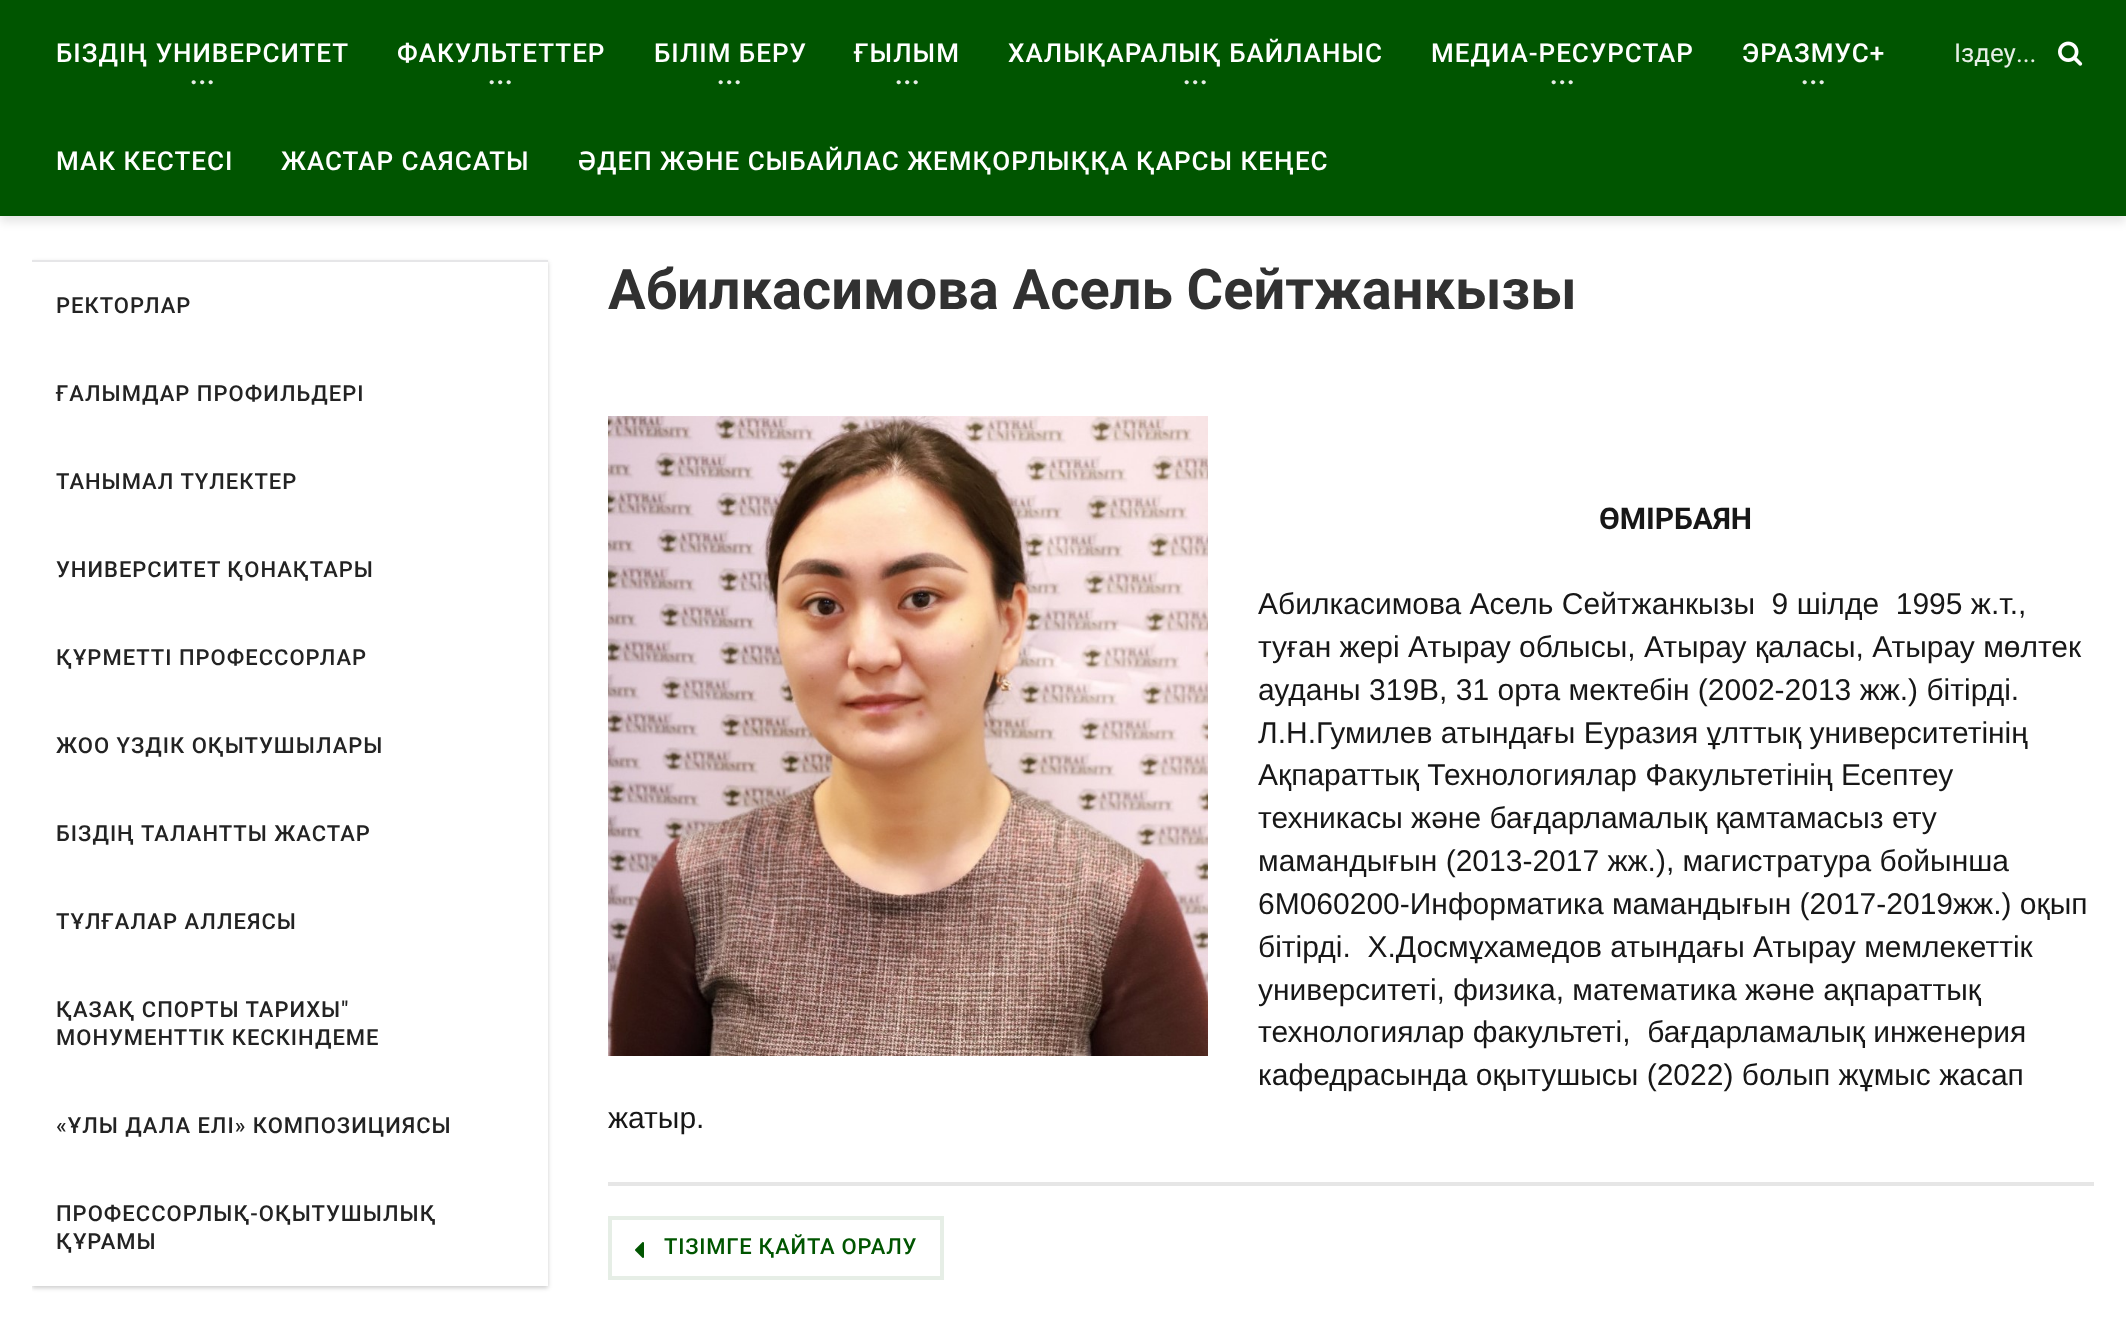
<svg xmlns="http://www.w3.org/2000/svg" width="2126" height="1324">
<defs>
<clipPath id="clip1"><rect x="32" y="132" width="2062" height="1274"/></clipPath>
<clipPath id="clip2"><path d="M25 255h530v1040h-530zm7 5h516v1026h-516z" clip-rule="evenodd"/></clipPath>
</defs>
<rect width="100%" height="100%" fill="#fff"/>
<rect y="6" width="2126" height="216" fill="#0000001a" filter="blur(5px)"/>
<rect width="2126" height="216" fill="#050"/>
<text x="56" y="62" style="font-family:Roboto;font-size:26px;font-weight:500;letter-spacing:1px;fill:#fff">БІЗДІҢ УНИВЕРСИТЕТ</text>
<text x="190" y="84" style="font-family:Roboto;font-size:26px;font-weight:bold;letter-spacing:1px;fill:#e6eee6">...</text>
<text x="397" y="62" style="font-family:Roboto;font-size:26px;font-weight:500;letter-spacing:1px;fill:#fff">ФАКУЛЬТЕТТЕР</text>
<text x="488" y="84" style="font-family:Roboto;font-size:26px;font-weight:bold;letter-spacing:1px;fill:#e6eee6">...</text>
<text x="654" y="62" style="font-family:Roboto;font-size:26px;font-weight:500;letter-spacing:1px;fill:#fff">БІЛІМ БЕРУ</text>
<text x="717" y="84" style="font-family:Roboto;font-size:26px;font-weight:bold;letter-spacing:1px;fill:#e6eee6">...</text>
<text x="854" y="62" style="font-family:Roboto;font-size:26px;font-weight:500;letter-spacing:1px;fill:#fff">ҒЫЛЫМ</text>
<text x="895" y="84" style="font-family:Roboto;font-size:26px;font-weight:bold;letter-spacing:1px;fill:#e6eee6">...</text>
<text x="1008" y="62" style="font-family:Roboto;font-size:26px;font-weight:500;letter-spacing:1px;fill:#fff">ХАЛЫҚАРАЛЫҚ БАЙЛАНЫС</text>
<text x="1183" y="84" style="font-family:Roboto;font-size:26px;font-weight:bold;letter-spacing:1px;fill:#e6eee6">...</text>
<text x="1431" y="62" style="font-family:Roboto;font-size:26px;font-weight:500;letter-spacing:1px;fill:#fff">МЕДИА-РЕСУРСТАР</text>
<text x="1550" y="84" style="font-family:Roboto;font-size:26px;font-weight:bold;letter-spacing:1px;fill:#e6eee6">...</text>
<text x="1742" y="62" style="font-family:Roboto;font-size:26px;font-weight:500;letter-spacing:1px;fill:#fff">ЭРАЗМУС+</text>
<text x="1801" y="84" style="font-family:Roboto;font-size:26px;font-weight:bold;letter-spacing:1px;fill:#e6eee6">...</text>
<text x="56" y="170" style="font-family:Roboto;font-size:26px;font-weight:500;letter-spacing:1px;fill:#fff">МАК КЕСТЕСІ</text>
<text x="281" y="170" style="font-family:Roboto;font-size:26px;font-weight:500;letter-spacing:1px;fill:#fff">ЖАСТАР САЯСАТЫ</text>
<text x="578" y="170" style="font-family:Roboto;font-size:26px;font-weight:500;letter-spacing:1px;fill:#fff">ӘДЕП ЖӘНЕ СЫБАЙЛАС ЖЕМҚОРЛЫҚҚА ҚАРСЫ КЕҢЕС</text>
<text x="1954" y="62" style="font-family:Roboto;font-size:26px;fill:#e6eee6">Іздеу...</text>
<image x="2058" y="41" width="25" height="25" href="media/1.png"/>
<g clip-path="url(#clip1)">
<g clip-path="url(#clip2)">
<rect x="32" y="262" width="516" height="1026" fill="#00000033" filter="blur(2px)"/>
</g>
</g>
<rect x="32" y="260" width="516" height="2" fill="#e6e6e8"/>
<text x="56" y="313" style="font-family:Roboto;font-size:22px;font-weight:500;letter-spacing:1px;fill:#232323">РЕКТОРЛАР</text>
<text x="56" y="401" style="font-family:Roboto;font-size:22px;font-weight:500;letter-spacing:1px;fill:#232323">ҒАЛЫМДАР ПРОФИЛЬДЕРІ</text>
<text x="56" y="489" style="font-family:Roboto;font-size:22px;font-weight:500;letter-spacing:1px;fill:#232323">ТАНЫМАЛ ТҮЛЕКТЕР</text>
<text x="56" y="577" style="font-family:Roboto;font-size:22px;font-weight:500;letter-spacing:1px;fill:#232323">УНИВЕРСИТЕТ ҚОНАҚТАРЫ</text>
<text x="56" y="665" style="font-family:Roboto;font-size:22px;font-weight:500;letter-spacing:1px;fill:#232323">ҚҰРМЕТТІ ПРОФЕССОРЛАР</text>
<text x="56" y="753" style="font-family:Roboto;font-size:22px;font-weight:500;letter-spacing:1px;fill:#232323">ЖОО ҮЗДІК ОҚЫТУШЫЛАРЫ</text>
<text x="56" y="841" style="font-family:Roboto;font-size:22px;font-weight:500;letter-spacing:1px;fill:#232323">БІЗДІҢ ТАЛАНТТЫ ЖАСТАР</text>
<text x="56" y="929" style="font-family:Roboto;font-size:22px;font-weight:500;letter-spacing:1px;fill:#232323">ТҰЛҒАЛАР АЛЛЕЯСЫ</text>
<text x="56" y="1017" style="font-family:Roboto;font-size:22px;font-weight:500;letter-spacing:1px;fill:#232323">ҚАЗАҚ СПОРТЫ ТАРИХЫ"</text>
<text x="56" y="1045" style="font-family:Roboto;font-size:22px;font-weight:500;letter-spacing:1px;fill:#232323">МОНУМЕНТТІК КЕСКІНДЕМЕ</text>
<text x="56" y="1133" style="font-family:Roboto;font-size:22px;font-weight:500;letter-spacing:1px;fill:#232323">«ҰЛЫ ДАЛА ЕЛІ» КОМПОЗИЦИЯСЫ</text>
<text x="56" y="1221" style="font-family:Roboto;font-size:22px;font-weight:500;letter-spacing:1px;fill:#232323">ПРОФЕССОРЛЫҚ-ОҚЫТУШЫЛЫҚ</text>
<text x="56" y="1249" style="font-family:Roboto;font-size:22px;font-weight:500;letter-spacing:1px;fill:#232323">ҚҰРАМЫ</text>
<text x="608" y="309" style="font-family:Roboto;font-size:56px;font-weight:bold;fill:#313131">Абилкасимова Асель Сейтжанкызы</text>
<image x="608" y="416" width="600" height="640" href="media/2.png"/>
<text x="1599" y="529" style="font-family:Roboto;font-size:30px;font-weight:bold;fill:#171717">ӨМІРБАЯН</text>
<text x="1258" y="614" style="font-family:Liberation Sans;font-size:30px;fill:#171717" xml:space="preserve">Абилкасимова Асель Сейтжанкызы  9 шілде  1995 ж.т.,</text>
<text x="1258" y="657" style="font-family:Liberation Sans;font-size:30px;fill:#171717">туған жері Атырау облысы, Атырау қаласы, Атырау мөлтек</text>
<text x="1258" y="700" style="font-family:Liberation Sans;font-size:30px;fill:#171717">ауданы 319В, 31 орта мектебін (2002-2013 жж.) бітірді.</text>
<text x="1258" y="743" style="font-family:Liberation Sans;font-size:30px;fill:#171717">Л.Н.Гумилев атындағы Еуразия ұлттық университетінің</text>
<text x="1258" y="785" style="font-family:Liberation Sans;font-size:30px;fill:#171717">Ақпараттық Технологиялар Факультетінің Есептеу</text>
<text x="1258" y="828" style="font-family:Liberation Sans;font-size:30px;fill:#171717">техникасы және бағдарламалық қамтамасыз ету</text>
<text x="1258" y="871" style="font-family:Liberation Sans;font-size:30px;fill:#171717">мамандығын (2013-2017 жж.), магистратура бойынша</text>
<text x="1258" y="914" style="font-family:Liberation Sans;font-size:30px;fill:#171717">6М060200-Информатика мамандығын (2017-2019жж.) оқып</text>
<text x="1258" y="957" style="font-family:Liberation Sans;font-size:30px;fill:#171717" xml:space="preserve">бітірді.  Х.Досмұхамедов атындағы Атырау мемлекеттік</text>
<text x="1258" y="1000" style="font-family:Liberation Sans;font-size:30px;fill:#171717">университеті, физика, математика және ақпараттық</text>
<text x="1258" y="1042" style="font-family:Liberation Sans;font-size:30px;fill:#171717" xml:space="preserve">технологиялар факультеті,  бағдарламалық инженерия</text>
<text x="1258" y="1085" style="font-family:Liberation Sans;font-size:30px;fill:#171717">кафедрасында оқытушысы (2022) болып жұмыс жасап</text>
<text x="608" y="1128" style="font-family:Liberation Sans;font-size:30px;fill:#171717">жатыр.</text>
<rect x="608" y="1182" width="1486" height="4" fill="#e6e6e6"/>
<image x="635" y="1242" width="9" height="16" href="media/3.png"/>
<rect x="610" y="1218" width="332" height="60" fill="none" stroke="#e6eee6" stroke-width="4"/>
<text x="664" y="1254" style="font-family:Roboto;font-size:22px;font-weight:500;letter-spacing:0.75px;fill:#050">ТІЗІМГЕ ҚАЙТА ОРАЛУ</text>
</svg>
